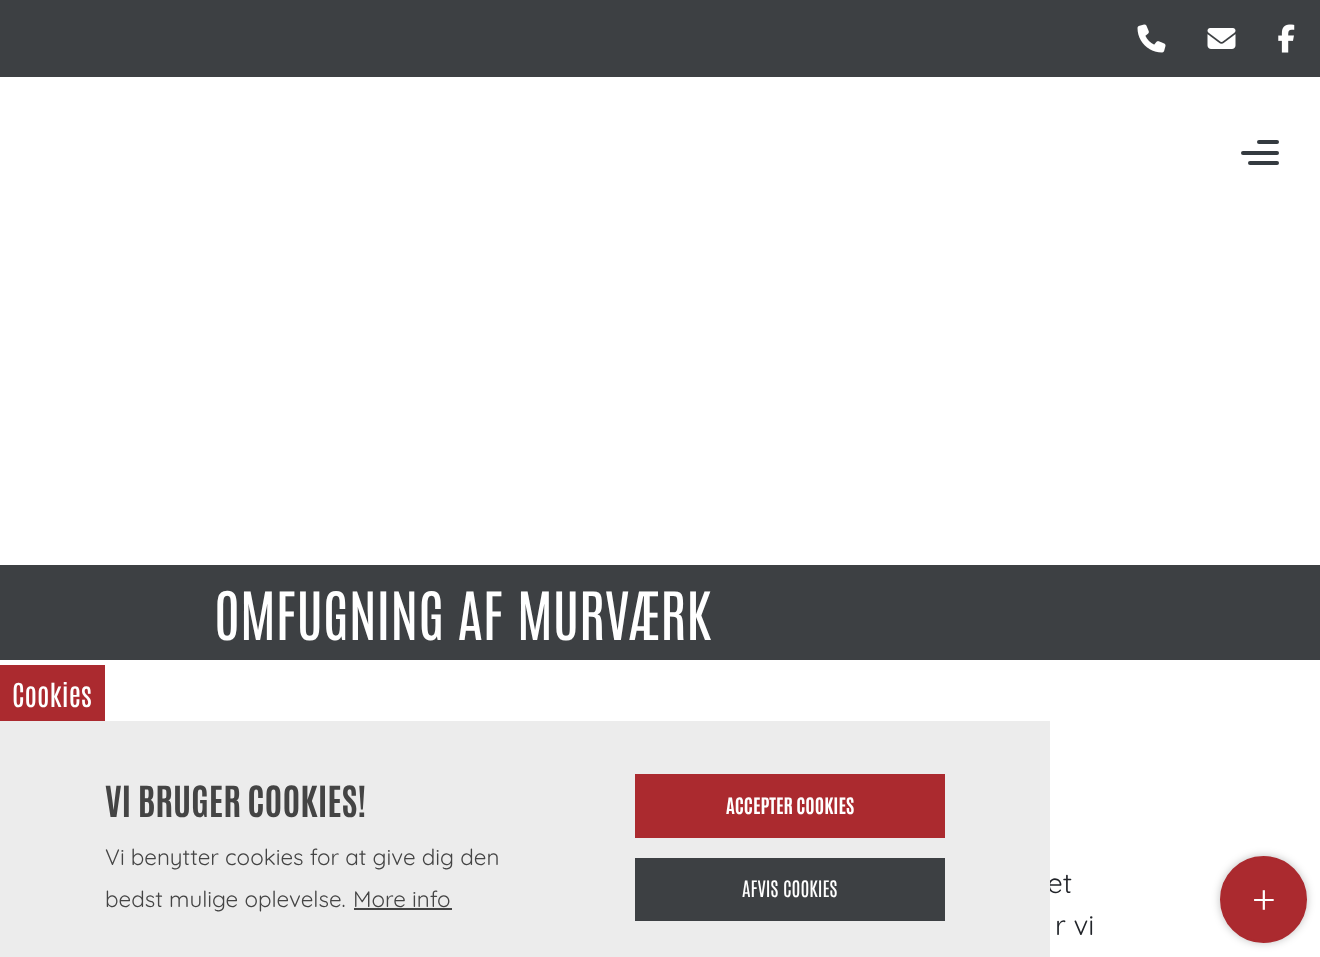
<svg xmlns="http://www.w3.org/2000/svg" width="1320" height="957">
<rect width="100%" height="100%" fill="#fff"/>
<rect width="1320" height="77" fill="#3d4043"/>
<image x="1137" y="24" width="29" height="29" href="media/1.png"/>
<image x="1207" y="28" width="29" height="21" href="media/2.png"/>
<image x="1278" y="24" width="17" height="29" href="media/3.png"/>
<rect x="1241" y="151" width="38" height="4" rx="2" fill="#343a40"/>
<rect x="1257" y="140" width="22" height="4" rx="2" fill="#343a40"/>
<rect x="1248" y="161" width="31" height="4" rx="2" fill="#343a40"/>
<rect y="565" width="1320" height="95" fill="#3d4043"/>
<text x="214" y="640" style="font-family:Antonio;font-size:56.5px;fill:#fff">OMFUGNING AF MURVÆRK</text>
<text x="1047" y="893" style="font-family:Quicksand;font-size:28px;fill:#212429">et</text>
<text x="1055" y="935" style="font-family:Quicksand;font-size:28px;fill:#212429">r vi</text>
<rect x="1220" y="856" width="87" height="87" rx="43.5" fill="#00000040" filter="blur(4.5px)"/>
<circle cx="1263.5" cy="899.5" r="42.5" fill="#ab2a2f" stroke="#ab2a2f" stroke-width="2"/>
<text x="1252" y="914" style="font-family:Liberation Serif;font-size:42px;fill:#fff">+</text>
<rect y="721" width="1050" height="236" fill="#ececec"/>
<rect y="665" width="105" height="56" fill="#ab2a2f"/>
<text x="12" y="707" style="font-family:Antonio;font-size:28px;fill:#fff">Cookies</text>
<text x="105" y="817" style="font-family:Antonio;font-size:36.5px;font-weight:bold;fill:#444">VI BRUGER COOKIES!</text>
<text x="105" y="865" style="font-family:Quicksand;font-size:22.4px;fill:#444">Vi benytter cookies for at give dig den</text>
<text x="105" y="907" style="font-family:Quicksand;font-size:22.4px;fill:#444">bedst mulige oplevelse.</text>
<text x="353" y="907" style="font-family:Quicksand;font-size:22.4px;fill:#444">More info</text>
<rect x="354" y="908" width="98" height="2" fill="#444"/>
<rect x="635" y="774" width="310" height="64" fill="#ab2a2f"/>
<text x="726" y="814" style="font-family:Antonio;font-size:19.25px;font-weight:bold;fill:#fff">ACCEPTER COOKIES</text>
<rect x="635" y="858" width="310" height="63" fill="#3d4043"/>
<text x="742" y="897" style="font-family:Antonio;font-size:19.25px;fill:#fff">AFVIS COOKIES</text>
</svg>
